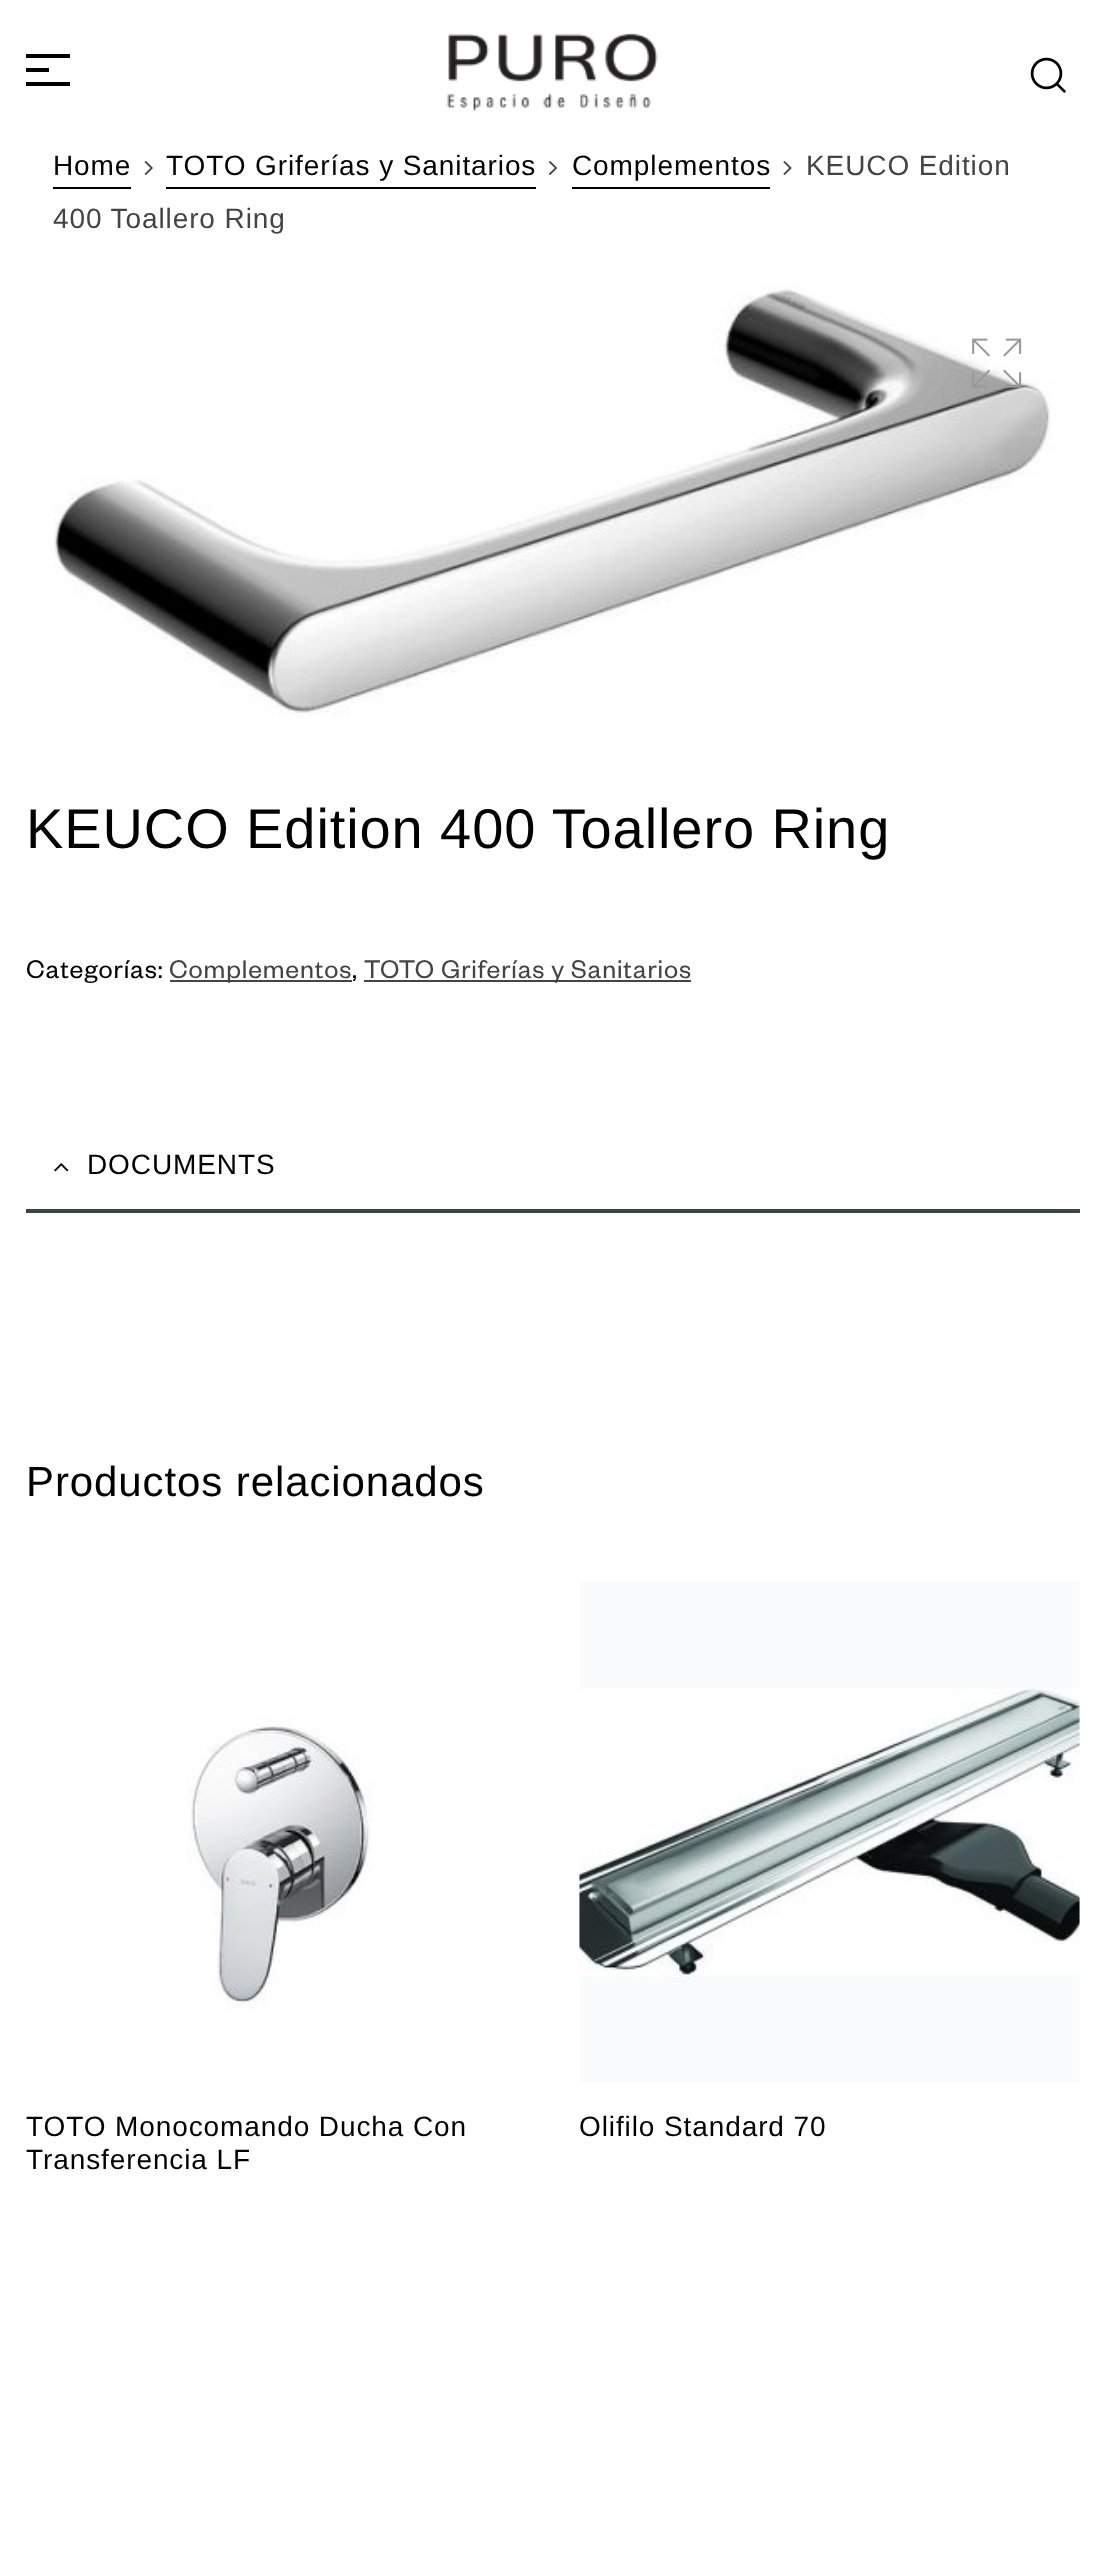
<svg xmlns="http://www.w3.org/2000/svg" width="1105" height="2558">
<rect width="100%" height="100%" fill="#fff"/>
<rect x="26" y="54" width="44" height="4" fill="#000"/>
<rect x="26" y="68" width="23" height="4" fill="#000"/>
<rect x="26" y="82" width="44" height="4" fill="#000"/>
<image x="446" y="33" width="212" height="79" href="media/1.png"/>
<image x="1030" y="57" width="36" height="36" href="media/2.png"/>
<text x="53" y="175" style="font-family:Liberation Sans;font-size:28px;letter-spacing:0.9px;fill:#000">Home</text>
<rect x="53" y="187" width="78" height="2" fill="#000"/>
<image x="144" y="161" width="9" height="14" href="media/3.png"/>
<text x="166" y="175" style="font-family:Liberation Sans;font-size:28px;letter-spacing:0.9px;fill:#000">TOTO Griferías y Sanitarios</text>
<rect x="166" y="187" width="370" height="2" fill="#000"/>
<image x="549" y="161" width="8" height="14" href="media/4.png"/>
<text x="572" y="175" style="font-family:Liberation Sans;font-size:28px;letter-spacing:0.9px;fill:#000">Complementos</text>
<rect x="572" y="187" width="198" height="2" fill="#000"/>
<image x="783" y="161" width="9" height="14" href="media/5.png"/>
<text x="806" y="175" style="font-family:Liberation Sans;font-size:28px;letter-spacing:0.9px;fill:#444">KEUCO Edition</text>
<text x="53" y="228" style="font-family:Liberation Sans;font-size:28px;letter-spacing:0.9px;fill:#444">400 Toallero Ring</text>
<image x="54" y="284" width="998" height="432" href="media/6.png"/>
<image x="972" y="338" width="50" height="50" href="media/7.png"/>
<text x="26" y="848" style="font-family:Liberation Sans;font-size:56px;letter-spacing:0.9px;fill:#000">KEUCO Edition 400 Toallero Ring</text>
<text x="26" y="978" style="font-family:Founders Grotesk;font-size:28px;letter-spacing:0.9px;fill:#000">Categorías:</text>
<rect x="170" y="980" width="182" height="2" fill="#444"/>
<text x="169" y="978" style="font-family:Founders Grotesk;font-size:28px;letter-spacing:0.9px;fill:#444">Complementos</text>
<text x="352" y="978" style="font-family:Founders Grotesk;font-size:28px;letter-spacing:0.9px;fill:#000">,</text>
<rect x="364" y="980" width="327" height="2" fill="#444"/>
<text x="364" y="978" style="font-family:Founders Grotesk;font-size:28px;letter-spacing:0.9px;fill:#444">TOTO Griferías y Sanitarios</text>
<rect x="26" y="1209" width="1054" height="4" fill="#39483f"/>
<image x="54" y="1163" width="15" height="9" href="media/8.png"/>
<text x="87" y="1174" style="font-family:Liberation Sans;font-size:28px;letter-spacing:0.9px;fill:#000">DOCUMENTS</text>
<text x="26" y="1496" style="font-family:Liberation Sans;font-size:42px;letter-spacing:0.9px;fill:#000">Productos relacionados</text>
<image x="187" y="1717" width="186" height="292" href="media/9.png"/>
<text x="26" y="2136" style="font-family:Liberation Sans;font-size:28px;letter-spacing:0.9px;fill:#000">TOTO Monocomando Ducha Con</text>
<text x="26" y="2169" style="font-family:Liberation Sans;font-size:28px;letter-spacing:0.9px;fill:#000">Transferencia LF</text>
<image x="579" y="1582" width="501" height="500" href="media/10.png"/>
<text x="579" y="2136" style="font-family:Liberation Sans;font-size:28px;letter-spacing:0.9px;fill:#000">Olifilo Standard 70</text>
</svg>
